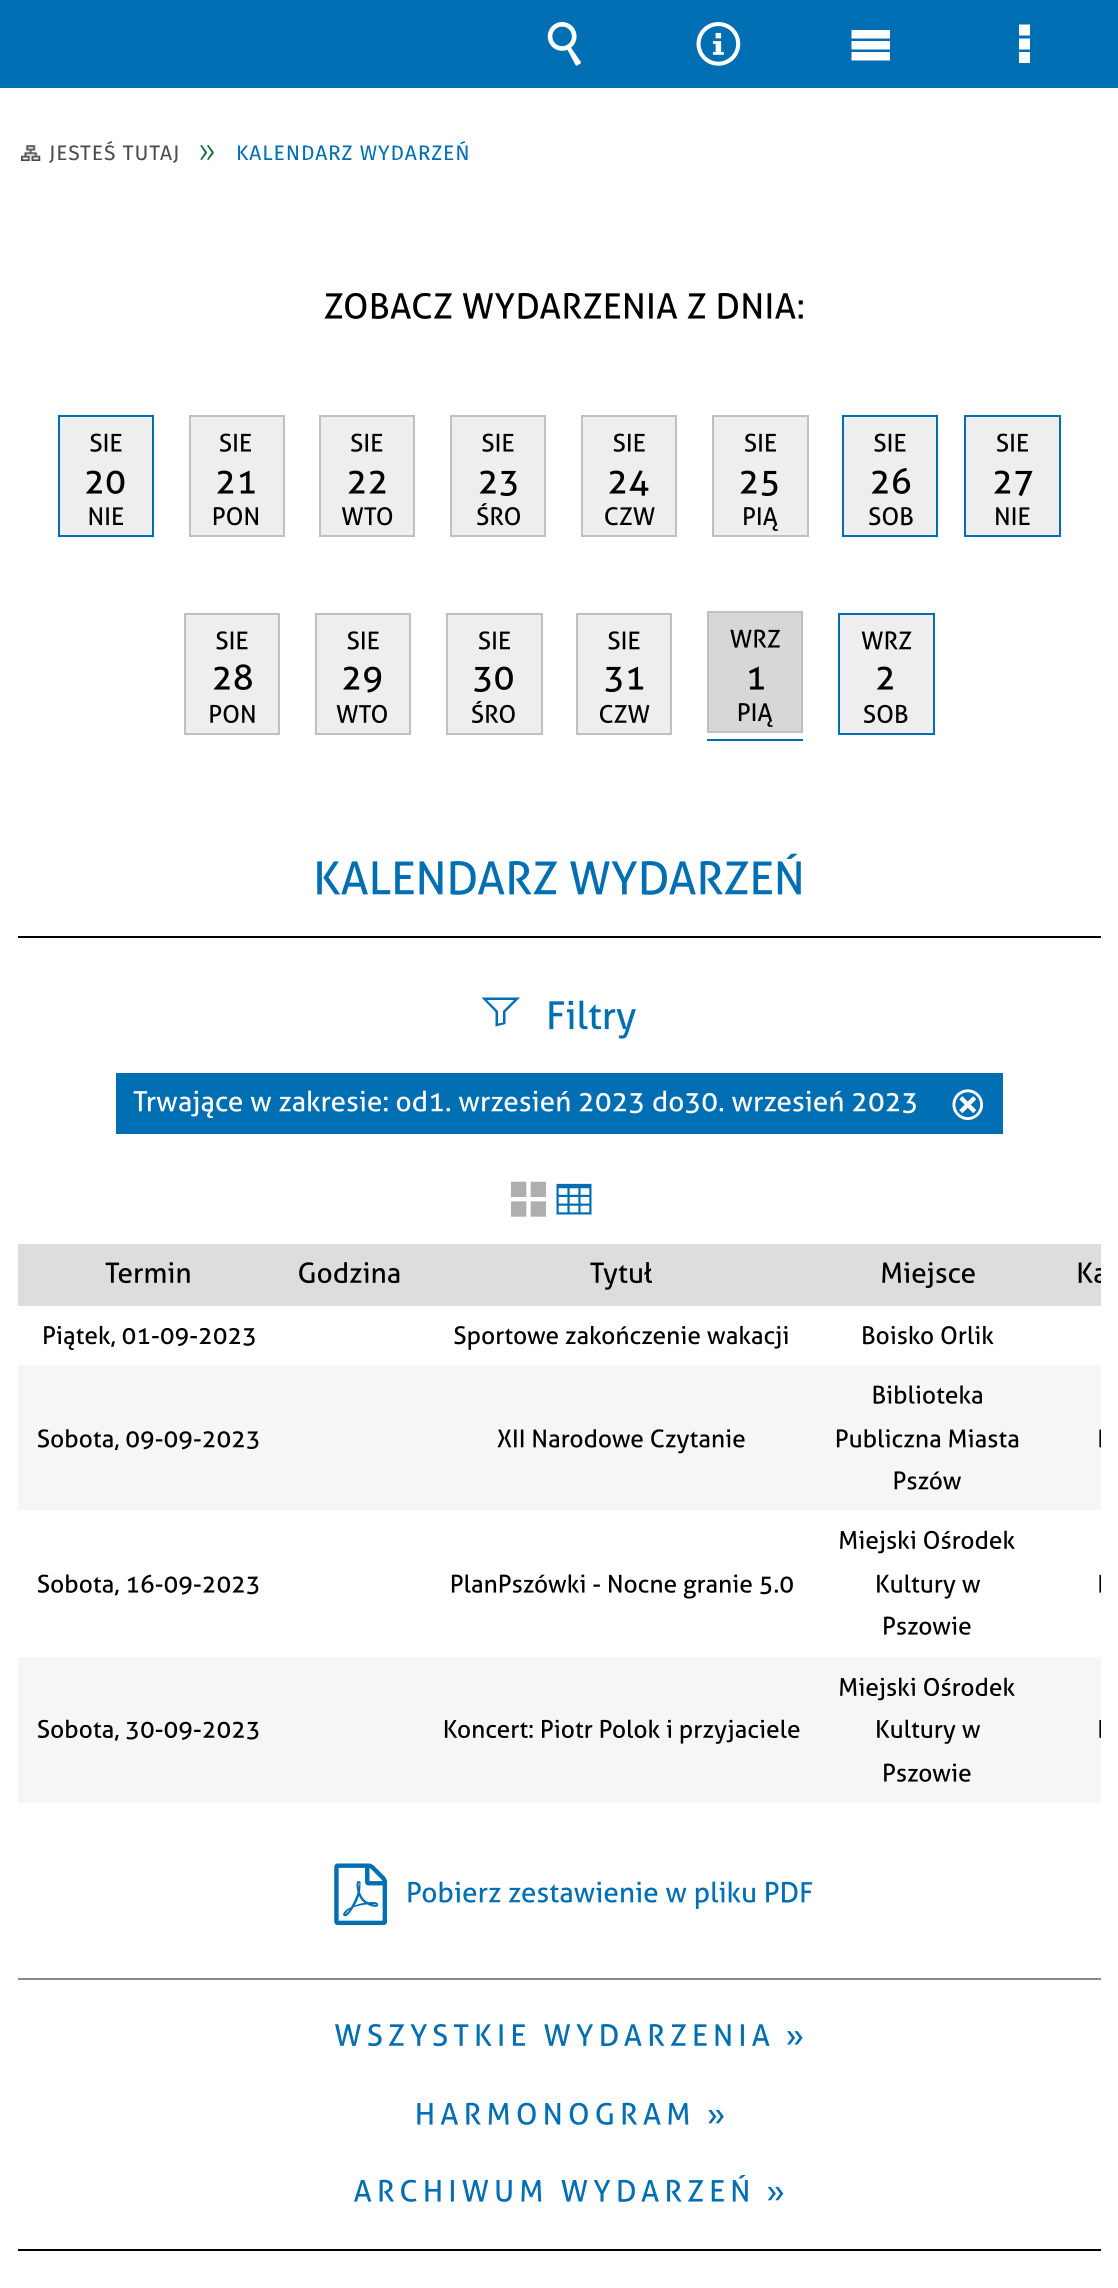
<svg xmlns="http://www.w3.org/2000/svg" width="1118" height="2288">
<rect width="100%" height="100%" fill="#fff"/>
<rect width="1118" height="88" fill="#006eb3"/>
<image x="547" y="22" width="34" height="44" href="media/1.png"/>
<image x="696" y="22" width="45" height="44" href="media/2.png"/>
<path d="M851.5 30v8.5h38.5v-8.5zm0 11v8.5h38.5v-8.5zm0 11v8.5h38.5v-8.5z" fill="#fff"/>
<path d="M1019 24.5v11h11v-11zm0 14v11h11v-11zm0 13.5v11h11v-11z" fill="#fff"/>
<image x="21" y="145" width="20" height="16" href="media/3.png"/>
<text x="49" y="160" style="font-family:Fira Sans;font-size:21px;letter-spacing:0.9px;fill:#4c4c4c">JESTEŚ TUTAJ</text>
<text x="198" y="162" style="font-family:Fira Sans;font-size:33px;font-weight:300;letter-spacing:0.9px;fill:#116f3a">»</text>
<text x="236" y="160" style="font-family:Fira Sans;font-size:21px;letter-spacing:0.9px;fill:#006eb3">KALENDARZ WYDARZEŃ</text>
<image x="324" y="292" width="479" height="27" href="media/4.png"/>
<rect x="59" y="416" width="94" height="120" fill="#eee" stroke="#006eb3" stroke-width="2"/>
<image x="90" y="433" width="32" height="19" href="media/5.png"/>
<image x="86" y="470" width="39" height="24" href="media/6.png"/>
<image x="89" y="507" width="35" height="19" href="media/7.png"/>
<rect x="190" y="416" width="94" height="120" fill="#eee" stroke="#c0c0c0" stroke-width="2"/>
<image x="219" y="433" width="32" height="19" href="media/8.png"/>
<image x="217" y="470" width="38" height="24" href="media/9.png"/>
<image x="213" y="507" width="45" height="19" href="media/10.png"/>
<rect x="320" y="416" width="94" height="120" fill="#eee" stroke="#c0c0c0" stroke-width="2"/>
<image x="351" y="433" width="32" height="19" href="media/11.png"/>
<image x="348" y="470" width="38" height="24" href="media/12.png"/>
<image x="342" y="507" width="51" height="19" href="media/13.png"/>
<rect x="451" y="416" width="94" height="120" fill="#eee" stroke="#c0c0c0" stroke-width="2"/>
<image x="482" y="433" width="32" height="19" href="media/5.png"/>
<image x="479" y="470" width="38" height="27" href="media/14.png"/>
<image x="477" y="503" width="43" height="23" href="media/15.png"/>
<rect x="582" y="416" width="94" height="120" fill="#eee" stroke="#c0c0c0" stroke-width="2"/>
<image x="613" y="433" width="32" height="19" href="media/16.png"/>
<image x="609" y="470" width="40" height="26" href="media/17.png"/>
<image x="605" y="507" width="50" height="19" href="media/18.png"/>
<rect x="713" y="416" width="95" height="120" fill="#eee" stroke="#c0c0c0" stroke-width="2"/>
<image x="744" y="433" width="32" height="19" href="media/8.png"/>
<image x="740" y="470" width="38" height="27" href="media/19.png"/>
<image x="744" y="507" width="34" height="24" href="media/20.png"/>
<rect x="843" y="416" width="94" height="120" fill="#eee" stroke="#006eb3" stroke-width="2"/>
<image x="874" y="433" width="32" height="19" href="media/5.png"/>
<image x="871" y="468" width="40" height="26" href="media/21.png"/>
<image x="869" y="507" width="44" height="19" href="media/22.png"/>
<rect x="965" y="416" width="95" height="120" fill="#eee" stroke="#006eb3" stroke-width="2"/>
<image x="996" y="433" width="32" height="19" href="media/8.png"/>
<image x="994" y="470" width="39" height="26" href="media/23.png"/>
<image x="996" y="507" width="34" height="19" href="media/24.png"/>
<rect x="185" y="614" width="94" height="120" fill="#eee" stroke="#c0c0c0" stroke-width="2"/>
<image x="216" y="631" width="32" height="19" href="media/25.png"/>
<image x="213" y="664" width="39" height="26" href="media/26.png"/>
<image x="210" y="704" width="45" height="19" href="media/27.png"/>
<rect x="316" y="614" width="94" height="120" fill="#eee" stroke="#c0c0c0" stroke-width="2"/>
<image x="347" y="631" width="32" height="19" href="media/28.png"/>
<image x="343" y="666" width="39" height="27" href="media/29.png"/>
<image x="336" y="704" width="51" height="19" href="media/30.png"/>
<rect x="447" y="614" width="95" height="120" fill="#eee" stroke="#c0c0c0" stroke-width="2"/>
<image x="478" y="631" width="32" height="19" href="media/31.png"/>
<image x="474" y="666" width="39" height="27" href="media/32.png"/>
<image x="471" y="700" width="44" height="24" href="media/33.png"/>
<rect x="577" y="614" width="94" height="120" fill="#eee" stroke="#c0c0c0" stroke-width="2"/>
<image x="608" y="631" width="32" height="19" href="media/25.png"/>
<image x="605" y="666" width="39" height="27" href="media/34.png"/>
<image x="599" y="704" width="51" height="19" href="media/35.png"/>
<rect x="708" y="612" width="94" height="120" fill="#d7d7d7" stroke="#c0c0c0" stroke-width="2"/>
<image x="730" y="629" width="51" height="19" href="media/36.png"/>
<image x="749" y="666" width="15" height="24" href="media/37.png"/>
<image x="738" y="703" width="35" height="24" href="media/38.png"/>
<rect x="707" y="739" width="96" height="2" fill="#006eb3"/>
<rect x="839" y="614" width="95" height="120" fill="#eee" stroke="#006eb3" stroke-width="2"/>
<image x="861" y="631" width="51" height="19" href="media/39.png"/>
<image x="877" y="666" width="16" height="24" href="media/40.png"/>
<image x="863" y="704" width="45" height="20" href="media/41.png"/>
<rect x="18" y="936" width="1083" height="2" fill="#000"/>
<image x="317" y="853" width="484" height="42" href="media/42.png"/>
<path d="M514 1000h-27l11 11v12.5l5-1v-11.5zm6-2.5l-14.5 14.5v12l-10 2.5v-14.5l-14-14.5z" fill="#006eb3"/>
<image x="549" y="1000" width="87" height="39" href="media/43.png"/>
<rect x="116" y="1073" width="887" height="61" fill="#006eb3"/>
<image x="133" y="1090" width="255" height="28" href="media/44.png"/>
<image x="396" y="1090" width="520" height="24" href="media/45.png"/>
<image x="952" y="1089" width="32" height="31" href="media/46.png"/>
<image x="511" y="1181" width="35" height="36" href="media/47.png"/>
<image x="556" y="1183" width="36" height="32" href="media/48.png"/>
<rect x="18" y="1244" width="1083" height="62" fill="#ddd"/>
<image x="105" y="1262" width="85" height="22" href="media/49.png"/>
<image x="299" y="1262" width="101" height="22" href="media/50.png"/>
<image x="590" y="1262" width="63" height="28" href="media/51.png"/>
<image x="882" y="1262" width="93" height="26" href="media/52.png"/>
<image x="1078" y="1262" width="23" height="22" href="media/53.png"/>
<image x="44" y="1325" width="211" height="25" href="media/54.png"/>
<image x="454" y="1325" width="334" height="25" href="media/55.png"/>
<image x="863" y="1325" width="131" height="20" href="media/56.png"/>
<rect x="18" y="1365" width="1083" height="145" fill="#f6f6f6"/>
<image x="37" y="1429" width="222" height="22" href="media/57.png"/>
<image x="497" y="1429" width="248" height="25" href="media/58.png"/>
<image x="873" y="1385" width="109" height="19" href="media/59.png"/>
<image x="836" y="1429" width="183" height="19" href="media/60.png"/>
<image x="894" y="1471" width="67" height="19" href="media/61.png"/>
<image x="1099" y="1429" width="2" height="19" href="media/62.png"/>
<image x="37" y="1574" width="222" height="22" href="media/63.png"/>
<image x="451" y="1574" width="342" height="25" href="media/64.png"/>
<image x="840" y="1530" width="175" height="24" href="media/65.png"/>
<image x="877" y="1574" width="103" height="25" href="media/66.png"/>
<image x="884" y="1616" width="87" height="19" href="media/67.png"/>
<image x="1099" y="1574" width="2" height="19" href="media/68.png"/>
<rect x="18" y="1657" width="1083" height="146" fill="#f6f6f6"/>
<image x="37" y="1719" width="222" height="22" href="media/69.png"/>
<image x="444" y="1719" width="356" height="25" href="media/70.png"/>
<image x="840" y="1677" width="175" height="24" href="media/71.png"/>
<image x="877" y="1719" width="104" height="25" href="media/72.png"/>
<image x="884" y="1763" width="87" height="19" href="media/73.png"/>
<image x="1099" y="1720" width="2" height="18" href="media/74.png"/>
<image x="334" y="1863" width="54" height="63" href="media/75.png"/>
<image x="408" y="1881" width="405" height="28" href="media/76.png"/>
<rect x="18" y="1978" width="1083" height="2" fill="#898989"/>
<image x="335" y="2024" width="435" height="23" href="media/77.png"/>
<image x="787" y="2031" width="16" height="14" href="media/78.png"/>
<image x="417" y="2102" width="272" height="23" href="media/79.png"/>
<image x="708" y="2109" width="16" height="15" href="media/80.png"/>
<image x="354" y="2175" width="394" height="27" href="media/81.png"/>
<image x="767" y="2186" width="17" height="15" href="media/82.png"/>
<rect x="18" y="2249" width="1083" height="2" fill="#000"/>
</svg>
